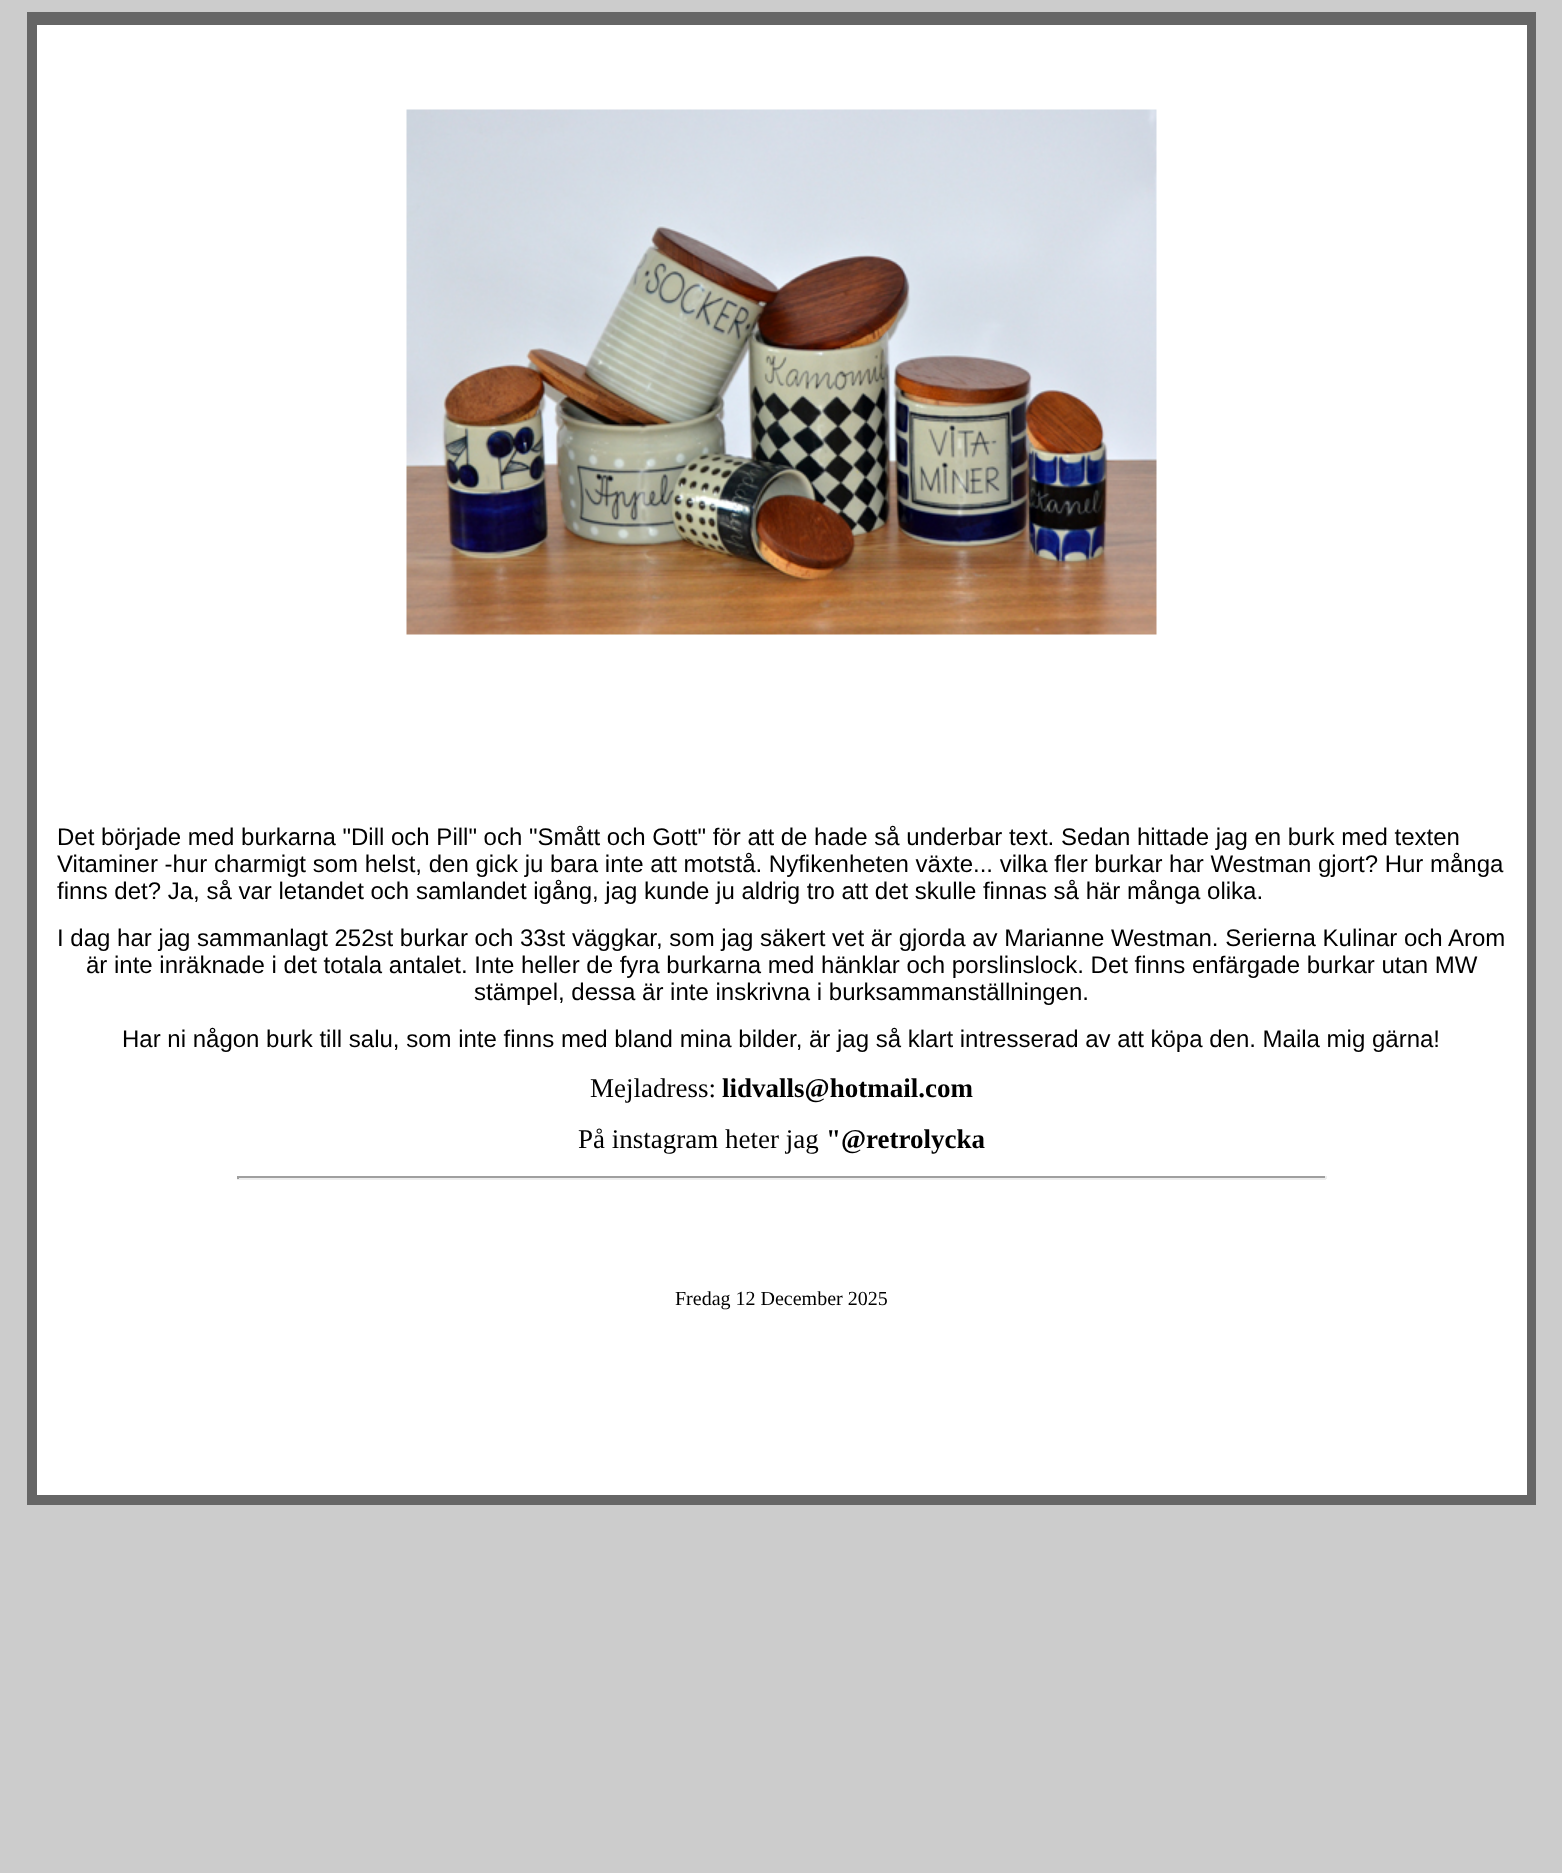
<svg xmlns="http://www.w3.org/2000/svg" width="1562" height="1873">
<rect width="100%" height="100%" fill="#ccc"/>
<rect x="31" y="16" width="1501" height="1485" fill="none" stroke="#666" stroke-width="8"/>
<rect x="35" y="20" width="1494" height="3" fill="#666"/>
<rect x="36" y="24" width="1492" height="1472" fill="#fff" stroke="#666" stroke-width="2"/>
<image x="406" y="109" width="751" height="526" href="media/1.png"/>
<text x="57" y="845" style="font-family:Liberation Sans;font-size:24px;fill:#000">Det började med burkarna "Dill och Pill" och "Smått och Gott" för att de hade så underbar text. Sedan hittade jag en burk med texten</text>
<text x="57" y="872" style="font-family:Liberation Sans;font-size:24px;fill:#000">Vitaminer -hur charmigt som helst, den gick ju bara inte att motstå. Nyfikenheten växte... vilka fler burkar har Westman gjort? Hur många</text>
<text x="57" y="899" style="font-family:Liberation Sans;font-size:24px;fill:#000">finns det? Ja, så var letandet och samlandet igång, jag kunde ju aldrig tro att det skulle finnas så här många olika.</text>
<text x="57" y="946" style="font-family:Liberation Sans;font-size:24px;fill:#000">I dag har jag sammanlagt 252st burkar och 33st väggkar, som jag säkert vet är gjorda av Marianne Westman. Serierna Kulinar och Arom</text>
<text x="86" y="973" style="font-family:Liberation Sans;font-size:24px;fill:#000">är inte inräknade i det totala antalet. Inte heller de fyra burkarna med hänklar och porslinslock. Det finns enfärgade burkar utan MW</text>
<text x="474" y="1000" style="font-family:Liberation Sans;font-size:24px;fill:#000">stämpel, dessa är inte inskrivna i burksammanställningen.</text>
<text x="122" y="1047" style="font-family:Liberation Sans;font-size:24px;fill:#000">Har ni någon burk till salu, som inte finns med bland mina bilder, är jag så klart intresserad av att köpa den. Maila mig gärna!</text>
<text x="590" y="1097" style="font-family:Liberation Serif;font-size:27px;fill:#000">Mejladress:</text>
<text x="722" y="1097" style="font-family:Liberation Serif;font-size:27px;font-weight:bold;fill:#000">lidvalls@hotmail.com</text>
<text x="578" y="1148" style="font-family:Liberation Serif;font-size:27px;fill:#000">På instagram heter jag</text>
<text x="826" y="1148" style="font-family:Liberation Serif;font-size:27px;font-weight:bold;fill:#000">"@retrolycka</text>
<rect x="237" y="1176" width="1089" height="2" fill="#9f9f9f"/>
<rect x="1325" y="1176" width="2" height="3" fill="#eee"/>
<rect x="237" y="1178" width="1089" height="2" fill="#eee"/>
<rect x="237" y="1176" width="2" height="3" fill="#9f9f9f"/>
<text x="675" y="1305" style="font-family:Liberation Serif;font-size:20px;fill:#000">Fredag 12 December 2025</text>
</svg>
